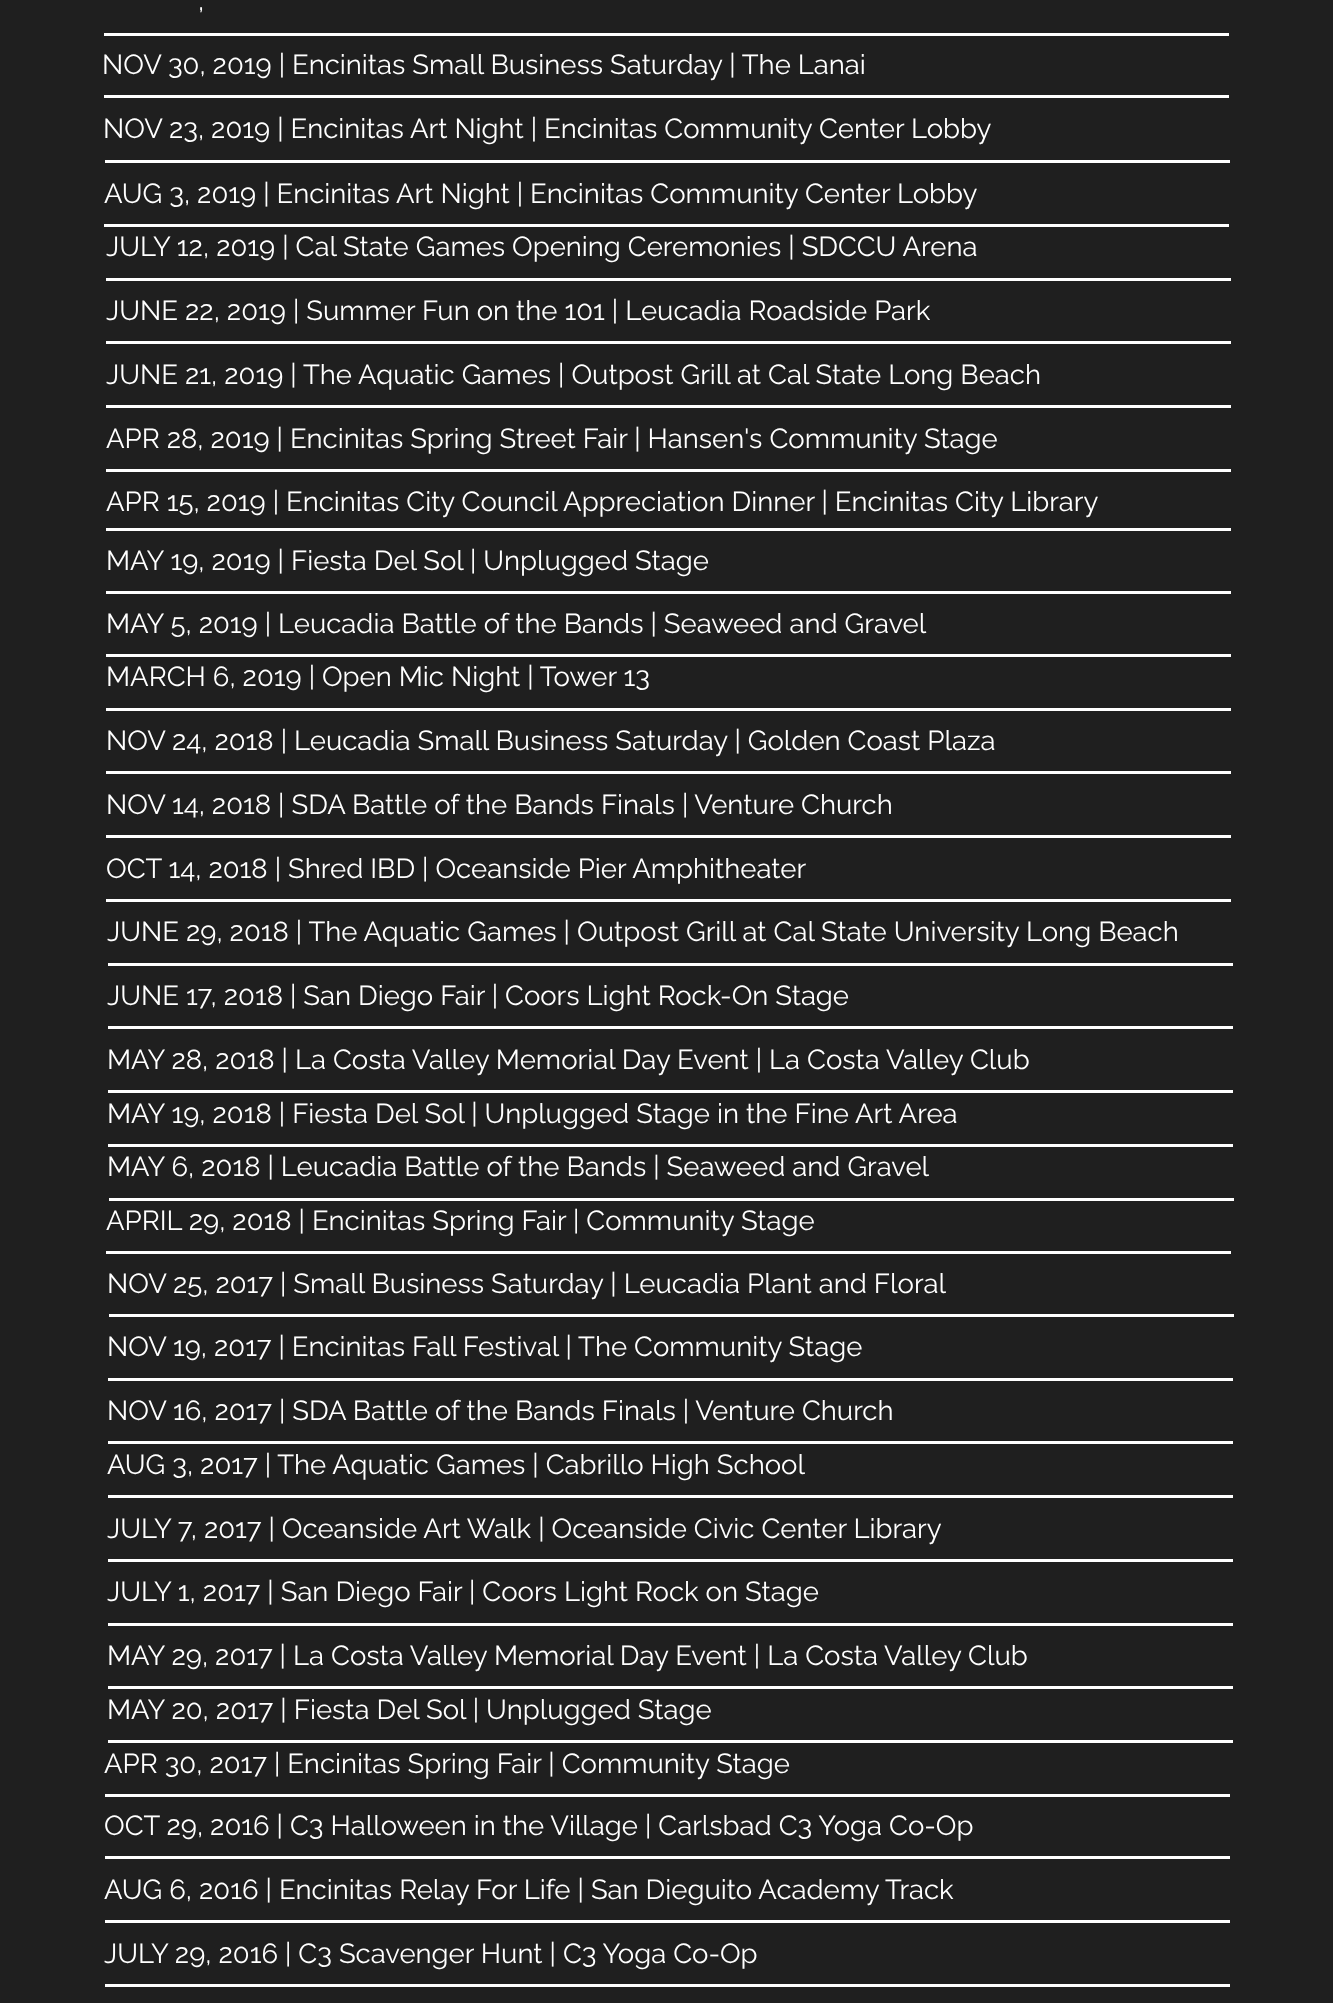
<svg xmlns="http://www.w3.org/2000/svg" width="1333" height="2003">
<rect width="100%" height="100%" fill="#1f1f1f"/>
<text x="198" y="10" style="font-family:Raleway;font-size:27.5px;fill:#fff">,</text>
<rect x="104" y="33" width="1125" height="3" fill="#fff"/>
<text x="102" y="74" style="font-family:Raleway;font-size:27.5px;fill:#fff">NOV 30, 2019 | Encinitas Small Business Saturday | The Lanai</text>
<rect x="104" y="95" width="1125" height="3" fill="#fff"/>
<text x="103" y="138" style="font-family:Raleway;font-size:27.5px;fill:#fff">NOV 23, 2019 | Encinitas Art Night | Encinitas Community Center Lobby</text>
<rect x="105" y="160" width="1125" height="3" fill="#fff"/>
<text x="104" y="203" style="font-family:Raleway;font-size:27.5px;fill:#fff">AUG 3, 2019 | Encinitas Art Night | Encinitas Community Center Lobby</text>
<rect x="104" y="224" width="1125" height="3" fill="#fff"/>
<text x="106" y="256" style="font-family:Raleway;font-size:27.5px;fill:#fff">JULY 12, 2019 | Cal State Games Opening Ceremonies | SDCCU Arena</text>
<rect x="106" y="278" width="1125" height="3" fill="#fff"/>
<text x="106" y="320" style="font-family:Raleway;font-size:27.5px;fill:#fff">JUNE 22, 2019 | Summer Fun on the 101 | Leucadia Roadside Park</text>
<rect x="106" y="341" width="1125" height="3" fill="#fff"/>
<text x="106" y="384" style="font-family:Raleway;font-size:27.5px;fill:#fff">JUNE 21, 2019 | The Aquatic Games | Outpost Grill at Cal State Long Beach</text>
<rect x="106" y="405" width="1125" height="3" fill="#fff"/>
<text x="106" y="448" style="font-family:Raleway;font-size:27.5px;fill:#fff">APR 28, 2019 | Encinitas Spring Street Fair | Hansen's Community Stage</text>
<rect x="106" y="469" width="1125" height="3" fill="#fff"/>
<text x="106" y="511" style="font-family:Raleway;font-size:27.5px;fill:#fff">APR 15, 2019 | Encinitas City Council Appreciation Dinner | Encinitas City Library</text>
<rect x="106" y="528" width="1125" height="3" fill="#fff"/>
<text x="106" y="570" style="font-family:Raleway;font-size:27.5px;fill:#fff">MAY 19, 2019 | Fiesta Del Sol | Unplugged Stage</text>
<rect x="106" y="591" width="1125" height="3" fill="#fff"/>
<text x="106" y="633" style="font-family:Raleway;font-size:27.5px;fill:#fff">MAY 5, 2019 | Leucadia Battle of the Bands | Seaweed and Gravel</text>
<rect x="106" y="654" width="1125" height="3" fill="#fff"/>
<text x="106" y="686" style="font-family:Raleway;font-size:27.5px;fill:#fff">MARCH 6, 2019 | Open Mic Night | Tower 13</text>
<rect x="106" y="708" width="1125" height="3" fill="#fff"/>
<text x="106" y="750" style="font-family:Raleway;font-size:27.5px;fill:#fff">NOV 24, 2018 | Leucadia Small Business Saturday | Golden Coast Plaza</text>
<rect x="106" y="771" width="1125" height="3" fill="#fff"/>
<text x="106" y="814" style="font-family:Raleway;font-size:27.5px;fill:#fff">NOV 14, 2018 | SDA Battle of the Bands Finals | Venture Church</text>
<rect x="106" y="835" width="1125" height="3" fill="#fff"/>
<text x="106" y="878" style="font-family:Raleway;font-size:27.5px;fill:#fff">OCT 14, 2018 | Shred IBD | Oceanside Pier Amphitheater</text>
<rect x="106" y="899" width="1125" height="3" fill="#fff"/>
<text x="107" y="941" style="font-family:Raleway;font-size:27.5px;fill:#fff">JUNE 29, 2018 | The Aquatic Games | Outpost Grill at Cal State University Long Beach</text>
<rect x="108" y="963" width="1125" height="3" fill="#fff"/>
<text x="107" y="1005" style="font-family:Raleway;font-size:27.5px;fill:#fff">JUNE 17, 2018 | San Diego Fair | Coors Light Rock-On Stage</text>
<rect x="108" y="1026" width="1125" height="3" fill="#fff"/>
<text x="107" y="1069" style="font-family:Raleway;font-size:27.5px;fill:#fff">MAY 28, 2018 | La Costa Valley Memorial Day Event | La Costa Valley Club</text>
<rect x="108" y="1090" width="1125" height="3" fill="#fff"/>
<text x="107" y="1123" style="font-family:Raleway;font-size:27.5px;fill:#fff">MAY 19, 2018 | Fiesta Del Sol | Unplugged Stage in the Fine Art Area</text>
<rect x="108" y="1144" width="1125" height="3" fill="#fff"/>
<text x="107" y="1176" style="font-family:Raleway;font-size:27.5px;fill:#fff">MAY 6, 2018 | Leucadia Battle of the Bands | Seaweed and Gravel</text>
<rect x="109" y="1198" width="1125" height="3" fill="#fff"/>
<text x="106" y="1230" style="font-family:Raleway;font-size:27.5px;fill:#fff">APRIL 29, 2018 | Encinitas Spring Fair | Community Stage</text>
<rect x="106" y="1251" width="1125" height="3" fill="#fff"/>
<text x="107" y="1293" style="font-family:Raleway;font-size:27.5px;fill:#fff">NOV 25, 2017 | Small Business Saturday | Leucadia Plant and Floral</text>
<rect x="109" y="1314" width="1125" height="3" fill="#fff"/>
<text x="107" y="1356" style="font-family:Raleway;font-size:27.5px;fill:#fff">NOV 19, 2017 | Encinitas Fall Festival | The Community Stage</text>
<rect x="108" y="1378" width="1125" height="3" fill="#fff"/>
<text x="107" y="1420" style="font-family:Raleway;font-size:27.5px;fill:#fff">NOV 16, 2017 | SDA Battle of the Bands Finals | Venture Church</text>
<rect x="108" y="1441" width="1125" height="3" fill="#fff"/>
<text x="107" y="1474" style="font-family:Raleway;font-size:27.5px;fill:#fff">AUG 3, 2017 | The Aquatic Games | Cabrillo High School</text>
<rect x="108" y="1495" width="1125" height="3" fill="#fff"/>
<text x="107" y="1538" style="font-family:Raleway;font-size:27.5px;fill:#fff">JULY 7, 2017 | Oceanside Art Walk | Oceanside Civic Center Library</text>
<rect x="108" y="1559" width="1125" height="3" fill="#fff"/>
<text x="107" y="1601" style="font-family:Raleway;font-size:27.5px;fill:#fff">JULY 1, 2017 | San Diego Fair | Coors Light Rock on Stage</text>
<rect x="108" y="1623" width="1125" height="3" fill="#fff"/>
<text x="107" y="1665" style="font-family:Raleway;font-size:27.5px;fill:#fff">MAY 29, 2017 | La Costa Valley Memorial Day Event | La Costa Valley Club</text>
<rect x="108" y="1686" width="1125" height="3" fill="#fff"/>
<text x="107" y="1719" style="font-family:Raleway;font-size:27.5px;fill:#fff">MAY 20, 2017 | Fiesta Del Sol | Unplugged Stage</text>
<rect x="108" y="1740" width="1125" height="3" fill="#fff"/>
<text x="104" y="1773" style="font-family:Raleway;font-size:27.5px;fill:#fff">APR 30, 2017 | Encinitas Spring Fair | Community Stage</text>
<rect x="105" y="1794" width="1125" height="3" fill="#fff"/>
<text x="104" y="1835" style="font-family:Raleway;font-size:27.5px;fill:#fff">OCT 29, 2016 | C3 Halloween in the Village | Carlsbad C3 Yoga Co-Op</text>
<rect x="105" y="1856" width="1125" height="3" fill="#fff"/>
<text x="104" y="1899" style="font-family:Raleway;font-size:27.5px;fill:#fff">AUG 6, 2016 | Encinitas Relay For Life | San Dieguito Academy Track</text>
<rect x="105" y="1920" width="1125" height="3" fill="#fff"/>
<text x="104" y="1963" style="font-family:Raleway;font-size:27.5px;fill:#fff">JULY 29, 2016 | C3 Scavenger Hunt | C3 Yoga Co-Op</text>
<rect x="105" y="1984" width="1125" height="3" fill="#fff"/>
</svg>
